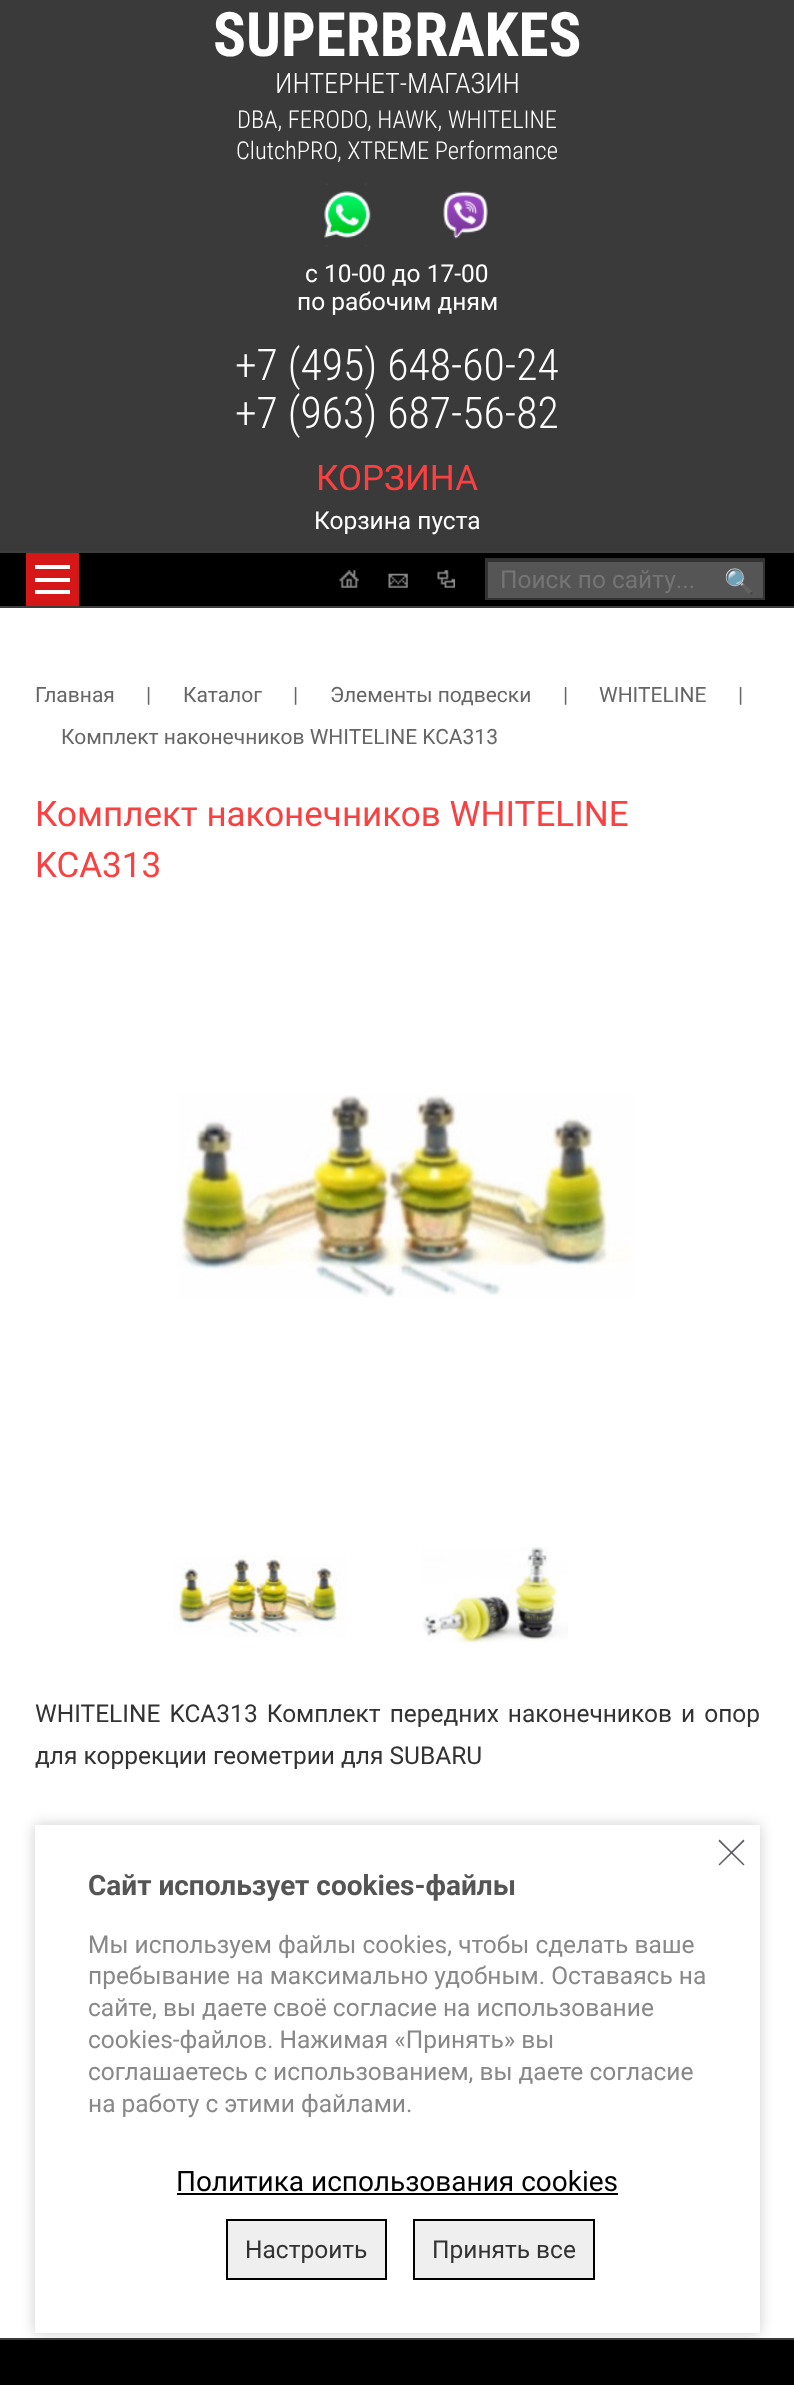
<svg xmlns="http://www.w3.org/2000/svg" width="794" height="2385">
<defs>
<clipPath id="clip1"><rect x="487" y="560" width="276" height="39"/></clipPath>
</defs>
<rect width="100%" height="100%" fill="#fff"/>
<rect width="794" height="551" fill="#3a3a3a"/>
<text x="213" y="56" style="font-family:Roboto Condensed;font-size:61.25px;font-weight:bold;fill:#fff">SUPERBRAKES</text>
<text x="275" y="93" style="font-family:Roboto Condensed;font-size:28.25px;font-weight:300;fill:#fff">ИНТЕРНЕТ-МАГАЗИН</text>
<text x="237" y="128" style="font-family:Roboto Condensed;font-size:24.5px;font-weight:300;fill:#fff">DBA, FERODO</text>
<text x="367" y="128" style="font-family:Roboto Condensed;font-size:24.5px;font-weight:300;fill:#fff">, HAWK, WHITELINE</text>
<text x="236" y="159" style="font-family:Roboto Condensed;font-size:24.5px;font-weight:300;fill:#fff">ClutchPRO</text>
<text x="337" y="159" style="font-family:Roboto Condensed;font-size:24.5px;font-weight:300;fill:#fff">, XTREME Performance</text>
<image x="315" y="183" width="63" height="64" href="media/1.png"/>
<image x="434" y="186" width="59" height="53" href="media/2.png"/>
<text x="305" y="282" style="font-family:Roboto;font-size:24.5px;fill:#fff">с 10-00 до 17-00</text>
<text x="297" y="310" style="font-family:Roboto;font-size:24.5px;fill:#fff">по рабочим дням</text>
<text x="235" y="380" style="font-family:Roboto Condensed;font-size:43.75px;font-weight:300;fill:#fff">+7 (495) 648-60-24</text>
<text x="235" y="428" style="font-family:Roboto Condensed;font-size:43.75px;font-weight:300;fill:#fff">+7 (963) 687-56-82</text>
<text x="316" y="490" style="font-family:Roboto;font-size:35px;fill:#fa4040">КОРЗИНА</text>
<text x="314" y="529" style="font-family:Roboto;font-size:24.5px;fill:#fff">Корзина пуста</text>
<rect y="553" width="794" height="53" fill="#000"/>
<image x="339" y="570" width="20" height="18" href="media/3.png"/>
<image x="388" y="573" width="20" height="15" href="media/4.png"/>
<image x="437" y="570" width="18" height="18" href="media/5.png"/>
<rect x="488" y="562" width="275" height="36" fill="#555"/>
<g clip-path="url(#clip1)">
<path d="M313 387h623v385h-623zm175 175h277v38h-277z" fill="#333" fill-rule="evenodd"/>
</g>
<rect x="486" y="559" width="278" height="40" fill="none" stroke="#333" stroke-width="2"/>
<text x="500" y="588" style="font-family:Roboto;font-size:24.5px;fill:#757575">Поиск по сайту...</text>
<text x="724" y="590" style="font-family:Noto Color Emoji;font-size:24.5px;fill:#fff">🔍</text>
<rect y="551" width="794" height="2" fill="#3c3c3c"/>
<rect y="606" width="794" height="2" fill="#3c3c3c"/>
<rect x="26" y="553" width="53" height="53" fill="#d51717"/>
<rect x="35" y="578" width="35" height="4" fill="#fff"/>
<rect x="35" y="565" width="35" height="4" fill="#fff"/>
<rect x="35" y="590" width="35" height="4" fill="#fff"/>
<text x="35" y="702" style="font-family:Roboto;font-size:21px;fill:#666">Главная</text>
<text x="146" y="702" style="font-family:Roboto;font-size:21px;fill:#666">|</text>
<text x="183" y="702" style="font-family:Roboto;font-size:21px;fill:#666">Каталог</text>
<text x="293" y="702" style="font-family:Roboto;font-size:21px;fill:#666">|</text>
<text x="330" y="702" style="font-family:Roboto;font-size:21px;fill:#666">Элементы подвески</text>
<text x="563" y="702" style="font-family:Roboto;font-size:21px;fill:#666">|</text>
<text x="599" y="702" style="font-family:Roboto;font-size:21px;fill:#666">WHITELINE</text>
<text x="738" y="702" style="font-family:Roboto;font-size:21px;fill:#666">|</text>
<text x="61" y="744" style="font-family:Roboto;font-size:21px;fill:#666">Комплект наконечников WHITELINE KCA313</text>
<text x="35" y="826" style="font-family:Roboto;font-size:35px;fill:#fa4040">Комплект наконечников WHITELINE</text>
<text x="35" y="877" style="font-family:Roboto;font-size:35px;fill:#fa4040">KCA313</text>
<image x="178" y="1095" width="456" height="202" href="media/6.png"/>
<image x="173" y="1555" width="173" height="82" href="media/7.png"/>
<image x="422" y="1547" width="146" height="97" href="media/8.png"/>
<text x="35" y="1722" word-spacing="3" style="font-family:Roboto;font-size:24.5px;fill:#333">WHITELINE KCA313 Комплект передних наконечников и опор</text>
<text x="35" y="1764" style="font-family:Roboto;font-size:24.5px;fill:#333">для коррекции геометрии для SUBARU</text>
<rect y="2340" width="794" height="45" fill="#000"/>
<rect y="2338" width="794" height="2" fill="#3c3c3c"/>
<rect x="35" y="1825" width="725" height="508" fill="#00000033" filter="blur(7px)"/>
<rect x="35" y="1825" width="725" height="508" fill="#fff"/>
<path d="M719.5 1839.5l25 25l-1 1l-25-24.5z" fill="#5b5b64"/>
<path d="M718.5 1864.5l25-25l1 1.5l-25 24.5z" fill="#5b5b64"/>
<text x="88" y="1895" style="font-family:Roboto;font-size:28px;font-weight:bold;fill:#555">Сайт использует cookies-файлы</text>
<text x="88" y="1953" style="font-family:Roboto;font-size:24.5px;fill:#888">Мы используем файлы cookies, чтобы сделать ваше</text>
<text x="88" y="1984" style="font-family:Roboto;font-size:24.5px;fill:#888">пребывание на максимально удобным. Оставаясь на</text>
<text x="88" y="2016" style="font-family:Roboto;font-size:24.5px;fill:#888">сайте, вы даете своё согласие на использование</text>
<text x="88" y="2048" style="font-family:Roboto;font-size:24.5px;fill:#888">cookies-файлов. Нажимая «Принять» вы</text>
<text x="88" y="2080" style="font-family:Roboto;font-size:24.5px;fill:#888">соглашаетесь с использованием, вы даете согласие</text>
<text x="88" y="2112" style="font-family:Roboto;font-size:24.5px;fill:#888">на работу с этими файлами.</text>
<text x="176" y="2191" style="font-family:Roboto;font-size:28px;fill:#000">Политика использования cookies</text>
<rect x="177" y="2193" width="441" height="2" fill="#000"/>
<rect x="227" y="2220" width="159" height="59" fill="#efefef" stroke="#000" stroke-width="2"/>
<text x="245" y="2258" style="font-family:Roboto;font-size:24.5px;fill:#333">Настроить</text>
<rect x="414" y="2220" width="180" height="59" fill="#efefef" stroke="#000" stroke-width="2"/>
<text x="432" y="2258" style="font-family:Roboto;font-size:24.5px;fill:#333">Принять все</text>
</svg>
